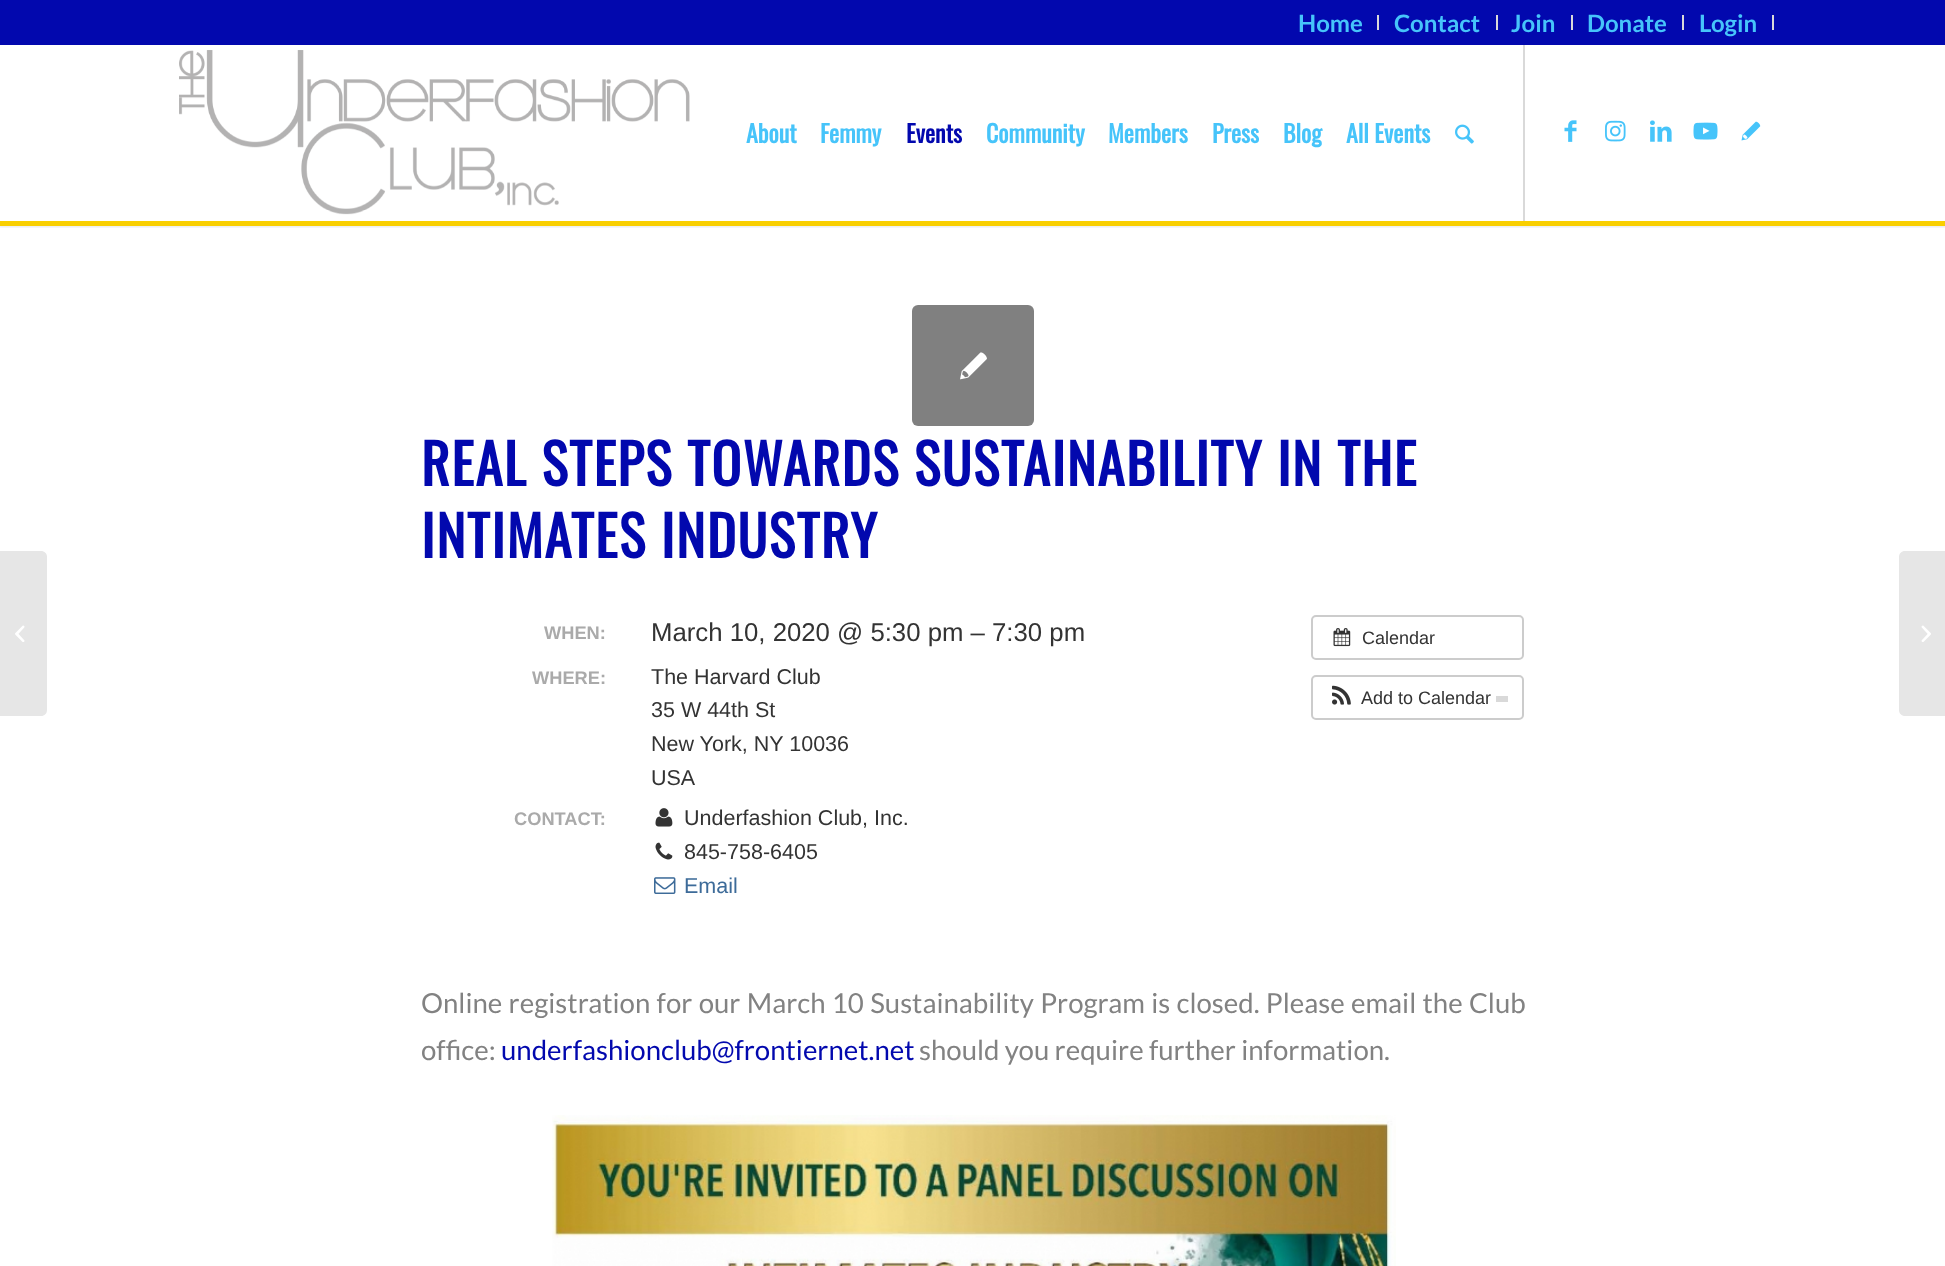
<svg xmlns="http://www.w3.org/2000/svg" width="1945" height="1266">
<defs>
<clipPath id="clip1"><rect x="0" y="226" width="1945" height="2"/></clipPath>
</defs>
<rect width="100%" height="100%" fill="#fff"/>
<g clip-path="url(#clip1)">
<rect x="-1" y="-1" width="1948" height="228" fill="#0000001a" filter="blur(1.5px)"/>
</g>
<rect x="1523" y="44" width="2" height="177" fill="#d9d9d9"/>
<rect width="1945" height="45" fill="#0208ae"/>
<rect x="1377" y="15" width="2" height="15" fill="#d9d9d9"/>
<text x="1298" y="32" style="font-family:Lato;font-size:24px;font-weight:bold;fill:#46c4fa">Home</text>
<rect x="1496" y="15" width="2" height="15" fill="#d9d9d9"/>
<text x="1394" y="32" style="font-family:Lato;font-size:24px;font-weight:bold;fill:#46c4fa">Contact</text>
<rect x="1571" y="15" width="2" height="15" fill="#d9d9d9"/>
<text x="1511" y="32" style="font-family:Lato;font-size:24px;font-weight:bold;fill:#46c4fa">Join</text>
<rect x="1682" y="15" width="2" height="15" fill="#d9d9d9"/>
<text x="1587" y="32" style="font-family:Lato;font-size:24px;font-weight:bold;fill:#46c4fa">Donate</text>
<rect x="1772" y="15" width="2" height="15" fill="#d9d9d9"/>
<text x="1699" y="32" style="font-family:Lato;font-size:24px;font-weight:bold;fill:#46c4fa">Login</text>
<rect y="221" width="1945" height="5" fill="#f9cf00"/>
<image x="179" y="50" width="511" height="165" href="media/1.png"/>
<text x="746" y="143" style="font-family:Oswald;font-size:24px;font-weight:bold;fill:#46c4fa">About</text>
<text x="820" y="143" style="font-family:Oswald;font-size:24px;font-weight:bold;fill:#46c4fa">Femmy</text>
<text x="906" y="143" style="font-family:Oswald;font-size:24px;font-weight:bold;fill:#0208ae">Events</text>
<text x="986" y="143" style="font-family:Oswald;font-size:24px;font-weight:bold;fill:#46c4fa">Community</text>
<text x="1108" y="143" style="font-family:Oswald;font-size:24px;font-weight:bold;fill:#46c4fa">Members</text>
<text x="1212" y="143" style="font-family:Oswald;font-size:24px;font-weight:bold;fill:#46c4fa">Press</text>
<text x="1283" y="143" style="font-family:Oswald;font-size:24px;font-weight:bold;fill:#46c4fa">Blog</text>
<text x="1346" y="143" style="font-family:Oswald;font-size:24px;font-weight:bold;fill:#46c4fa">All Events</text>
<image x="1455" y="124" width="19" height="20" href="media/2.png"/>
<image x="1564" y="120" width="13" height="22" href="media/3.png"/>
<image x="1605" y="120" width="21" height="22" href="media/4.png"/>
<image x="1650" y="120" width="22" height="22" href="media/5.png"/>
<image x="1693" y="122" width="25" height="18" href="media/6.png"/>
<image x="1741" y="121" width="20" height="20" href="media/7.png"/>
<path d="M0 551h41c3.5 0 6 2.5 6 6v153c0 3.5-2.5 6-6 6h-41z" fill="#e6e6e6"/>
<image x="15" y="625" width="10" height="17" href="media/8.png"/>
<rect x="912" y="305" width="122" height="121" rx="6" fill="#808080"/>
<image x="960" y="352" width="27" height="28" href="media/9.png"/>
<text x="421" y="486" style="font-family:Oswald;font-size:55.25px;font-weight:bold;letter-spacing:1.5px;fill:#0208ae">REAL STEPS TOWARDS SUSTAINABILITY IN THE</text>
<text x="421" y="558" style="font-family:Oswald;font-size:55.25px;font-weight:bold;letter-spacing:1.5px;fill:#0208ae">INTIMATES INDUSTRY</text>
<text x="544" y="639" style="font-family:Liberation Sans;font-size:18.25px;font-weight:bold;fill:#aaa">WHEN:</text>
<text x="651" y="641" style="font-family:Liberation Sans;font-size:25.75px;fill:#333">March 10, 2020 @ 5:30 pm – 7:30 pm</text>
<text x="532" y="684" style="font-family:Liberation Sans;font-size:18.25px;font-weight:bold;fill:#aaa">WHERE:</text>
<text x="651" y="684" style="font-family:Liberation Sans;font-size:21.5px;fill:#333">The Harvard Club</text>
<text x="651" y="717" style="font-family:Liberation Sans;font-size:21.5px;fill:#333">35 W 44th St</text>
<text x="651" y="751" style="font-family:Liberation Sans;font-size:21.5px;fill:#333">New York, NY 10036</text>
<text x="651" y="785" style="font-family:Liberation Sans;font-size:21.5px;fill:#333">USA</text>
<text x="514" y="825" style="font-family:Liberation Sans;font-size:18.25px;font-weight:bold;fill:#aaa">CONTACT:</text>
<image x="655" y="808" width="18" height="19" href="media/10.png"/>
<text x="684" y="825" style="font-family:Liberation Sans;font-size:21.5px;fill:#333">Underfashion Club, Inc.</text>
<image x="655" y="842" width="18" height="18" href="media/11.png"/>
<text x="684" y="859" style="font-family:Liberation Sans;font-size:21.5px;fill:#333">845-758-6405</text>
<image x="654" y="877" width="22" height="17" href="media/12.png"/>
<text x="684" y="893" style="font-family:Liberation Sans;font-size:21.5px;fill:#3d6b99">Email</text>
<rect x="1312" y="616" width="211" height="43" rx="4" fill="none" stroke="#ccc" stroke-width="2"/>
<image x="1333" y="628" width="18" height="19" href="media/13.png"/>
<text x="1362" y="644" style="font-family:Liberation Sans;font-size:18px;fill:#333">Calendar</text>
<rect x="1312" y="676" width="211" height="43" rx="4" fill="none" stroke="#ccc" stroke-width="2"/>
<image x="1332" y="685" width="19" height="20" href="media/14.png"/>
<text x="1361" y="704" style="font-family:Liberation Sans;font-size:18px;fill:#333">Add to Calendar</text>
<rect x="1496" y="696" width="12" height="6" fill="#d9d9d9"/>
<text x="421" y="1013" word-spacing="1" style="font-family:Lato;font-size:27.6px;fill:#828282">Online registration for our March 10 Sustainability Program is closed. Please email the Club</text>
<text x="421" y="1060" style="font-family:Lato;font-size:27.6px;fill:#828282">office:</text>
<text x="501" y="1060" style="font-family:Lato;font-size:27.6px;fill:#0208ae">underfashionclub@frontiernet.net</text>
<text x="919" y="1060" style="font-family:Lato;font-size:27.6px;fill:#828282">should you require further information.</text>
<image x="552" y="1115" width="844" height="151" href="media/15.png"/>
<path d="M1905 551h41v165h-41c-3.5 0-6-2.5-6-6v-153c0-3.5 2.5-6 6-6z" fill="#e6e6e6"/>
<image x="1921" y="625" width="10" height="17" href="media/16.png"/>
</svg>
